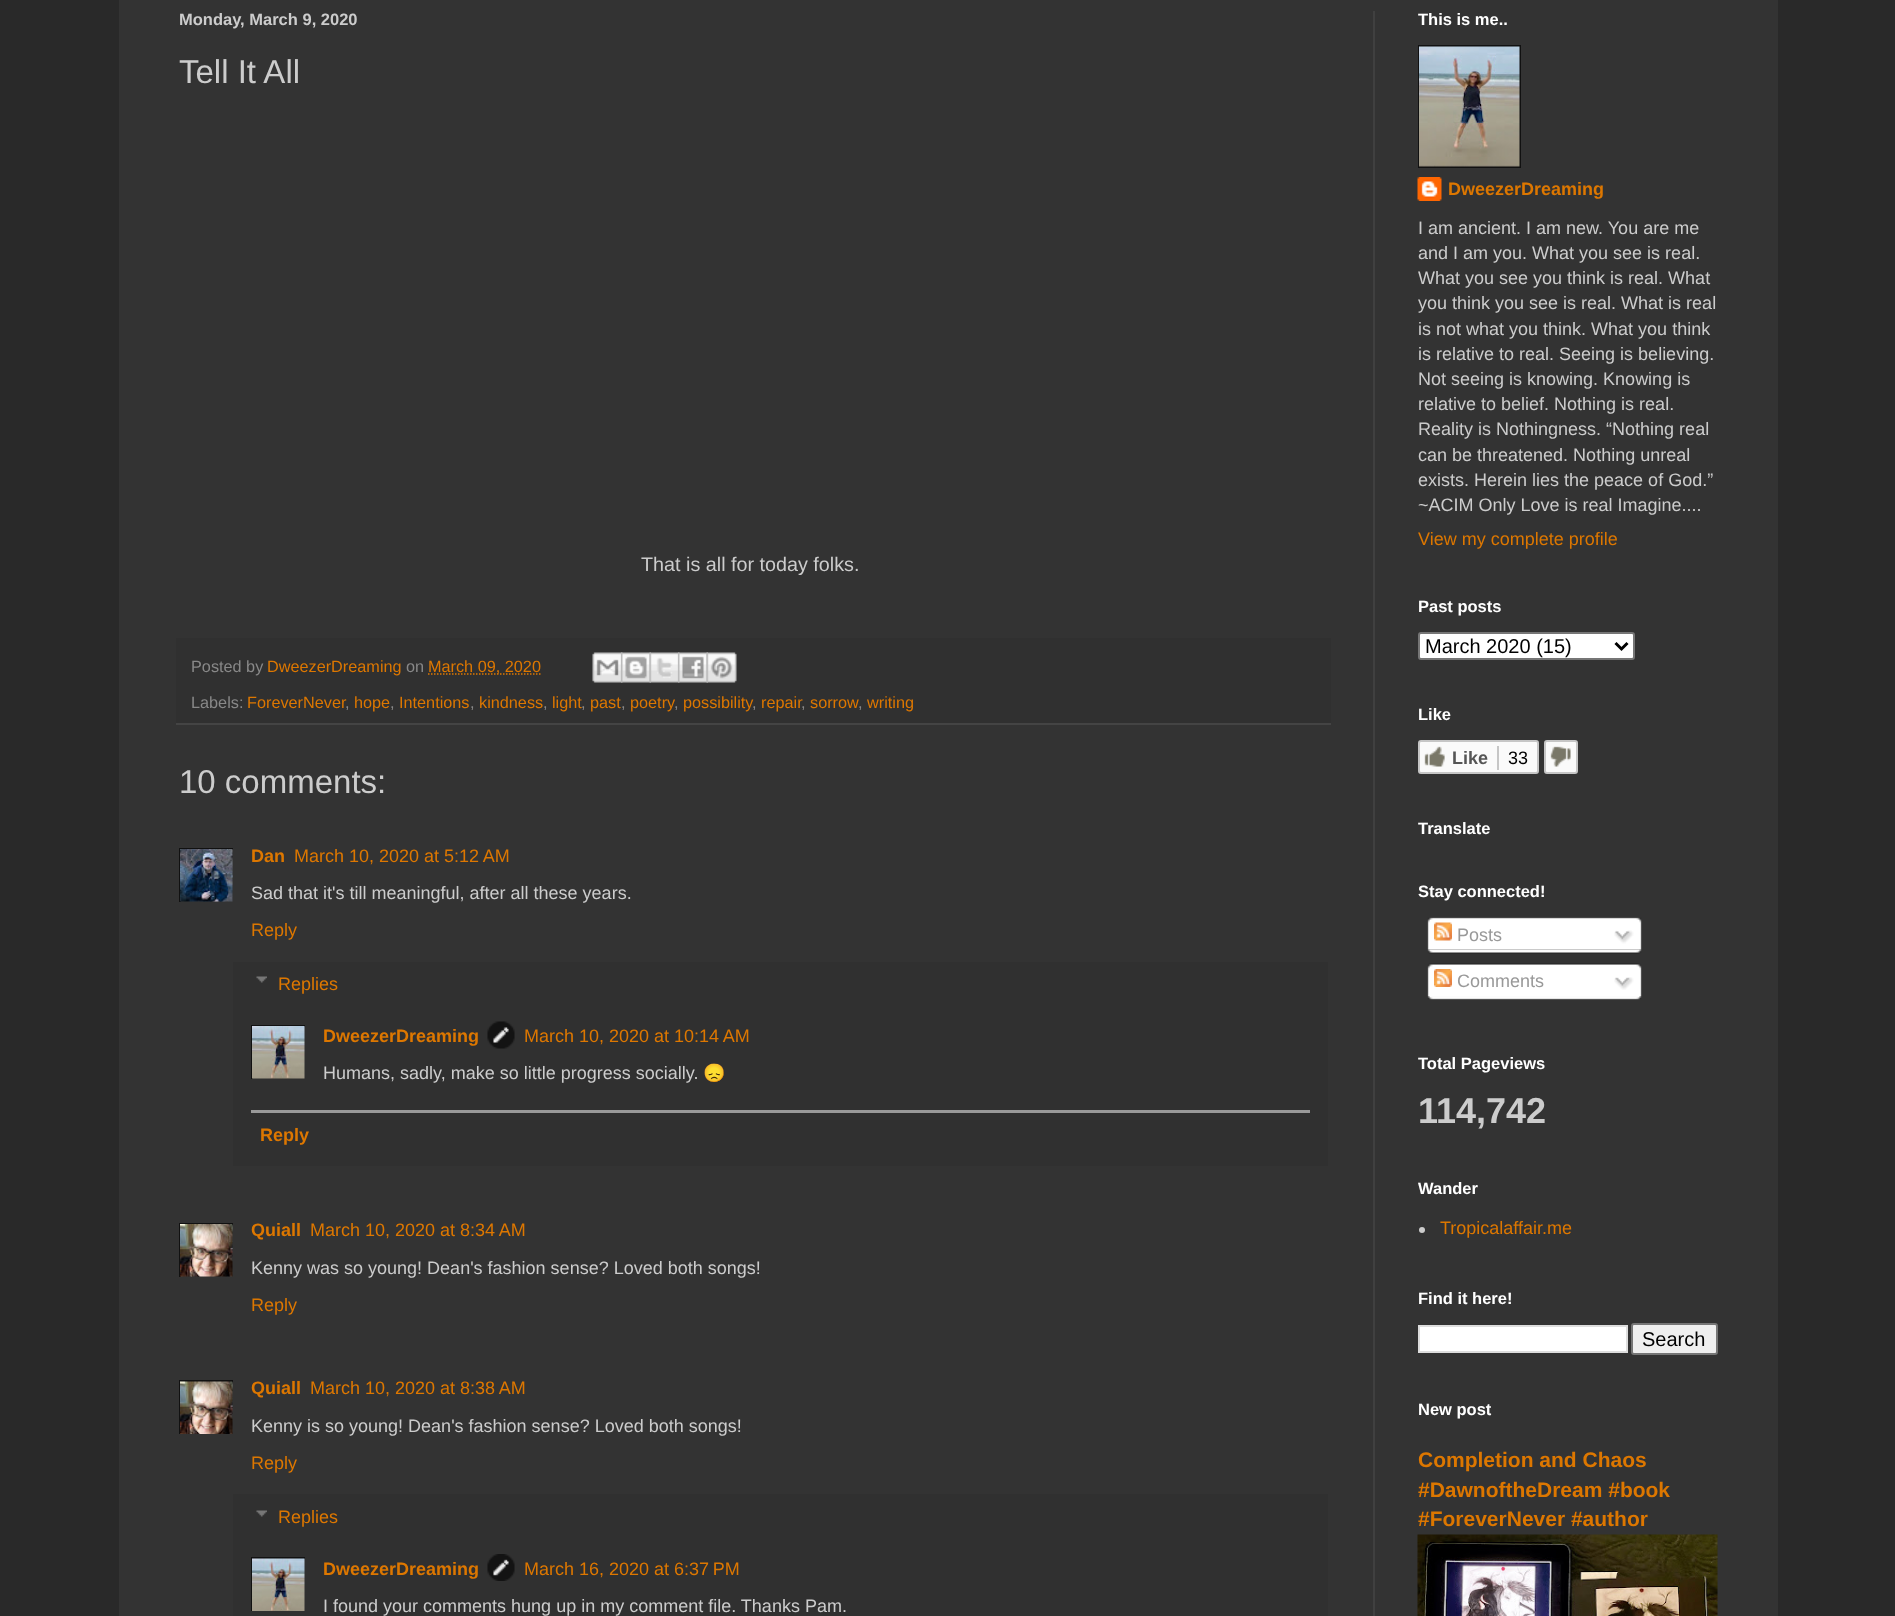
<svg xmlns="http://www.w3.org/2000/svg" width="1895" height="1616">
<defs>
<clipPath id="clip1"><rect x="179" y="848" width="54" height="54"/></clipPath>
<clipPath id="clip2"><rect x="251" y="1025" width="54" height="54"/></clipPath>
<clipPath id="clip3"><rect x="179" y="1223" width="54" height="54"/></clipPath>
<clipPath id="clip4"><rect x="179" y="1380" width="54" height="54"/></clipPath>
<clipPath id="clip5"><rect x="251" y="1557" width="54" height="54"/></clipPath>
</defs>
<rect width="100%" height="100%" fill="#292929"/>
<rect x="119" width="1659" height="1616" fill="#333"/>
<rect x="1373" y="11" width="2" height="1605" fill="#404040"/>
<text x="179" y="25" style="font-family:Liberation Sans;font-size:16.5px;font-weight:bold;fill:#ccc">Monday, March 9, 2020</text>
<text x="179" y="83" style="font-family:Liberation Sans;font-size:33px;fill:#ccc">Tell It All</text>
<text x="641" y="571" style="font-family:Liberation Sans;font-size:19.75px;fill:#ccc">That is all for today folks.</text>
<rect x="176" y="638" width="1155" height="85" fill="#303030"/>
<rect x="176" y="723" width="1155" height="2" fill="#444"/>
<text x="191" y="672" style="font-family:Liberation Sans;font-size:16.25px;fill:#888">Posted by</text>
<text x="267" y="672" style="font-family:Liberation Sans;font-size:16.25px;fill:#d70">DweezerDreaming</text>
<text x="406" y="672" style="font-family:Liberation Sans;font-size:16.25px;fill:#888">on</text>
<path d="M428 674h113" fill="none" stroke="#d70" stroke-width="1.5" stroke-dasharray="1.5 1.5"/>
<text x="428" y="672" style="font-family:Liberation Sans;font-size:16.25px;fill:#d70">March 09, 2020</text>
<image x="592" y="652" width="31" height="31" href="media/1.png"/>
<image x="621" y="652" width="30" height="31" href="media/2.png"/>
<image x="649" y="652" width="31" height="31" href="media/3.png"/>
<image x="678" y="652" width="30" height="31" href="media/4.png"/>
<image x="706" y="652" width="31" height="31" href="media/5.png"/>
<text x="191" y="708" style="font-family:Liberation Sans;font-size:16.25px;fill:#888">Labels:</text>
<text x="247" y="708" style="font-family:Liberation Sans;font-size:16.25px;fill:#d70">ForeverNever</text>
<text x="345" y="708" style="font-family:Liberation Sans;font-size:16.25px;fill:#888">,</text>
<text x="354" y="708" style="font-family:Liberation Sans;font-size:16.25px;fill:#d70">hope</text>
<text x="390" y="708" style="font-family:Liberation Sans;font-size:16.25px;fill:#888">,</text>
<text x="399" y="708" style="font-family:Liberation Sans;font-size:16.25px;fill:#d70">Intentions</text>
<text x="470" y="708" style="font-family:Liberation Sans;font-size:16.25px;fill:#888">,</text>
<text x="479" y="708" style="font-family:Liberation Sans;font-size:16.25px;fill:#d70">kindness</text>
<text x="543" y="708" style="font-family:Liberation Sans;font-size:16.25px;fill:#888">,</text>
<text x="552" y="708" style="font-family:Liberation Sans;font-size:16.25px;fill:#d70">light</text>
<text x="581" y="708" style="font-family:Liberation Sans;font-size:16.25px;fill:#888">,</text>
<text x="590" y="708" style="font-family:Liberation Sans;font-size:16.25px;fill:#d70">past</text>
<text x="621" y="708" style="font-family:Liberation Sans;font-size:16.25px;fill:#888">,</text>
<text x="630" y="708" style="font-family:Liberation Sans;font-size:16.25px;fill:#d70">poetry</text>
<text x="674" y="708" style="font-family:Liberation Sans;font-size:16.25px;fill:#888">,</text>
<text x="683" y="708" style="font-family:Liberation Sans;font-size:16.25px;fill:#d70">possibility</text>
<text x="752" y="708" style="font-family:Liberation Sans;font-size:16.25px;fill:#888">,</text>
<text x="761" y="708" style="font-family:Liberation Sans;font-size:16.25px;fill:#d70">repair</text>
<text x="801" y="708" style="font-family:Liberation Sans;font-size:16.25px;fill:#888">,</text>
<text x="810" y="708" style="font-family:Liberation Sans;font-size:16.25px;fill:#d70">sorrow</text>
<text x="858" y="708" style="font-family:Liberation Sans;font-size:16.25px;fill:#888">,</text>
<text x="867" y="708" style="font-family:Liberation Sans;font-size:16.25px;fill:#d70">writing</text>
<text x="179" y="793" style="font-family:Liberation Sans;font-size:33px;fill:#ccc">10 comments:</text>
<g clip-path="url(#clip1)">
<rect x="180" y="849" width="55" height="55" fill="none" stroke="#111" stroke-width="2"/>
</g>
<image x="180" y="849" width="53" height="53" href="media/6.png"/>
<text x="251" y="862" style="font-family:Liberation Sans;font-size:18px;font-weight:bold;fill:#d70">Dan</text>
<text x="294" y="862" style="font-family:Liberation Sans;font-size:18px;fill:#d70">March 10, 2020 at 5:12 AM</text>
<text x="251" y="899" style="font-family:Liberation Sans;font-size:18px;fill:#ccc">Sad that it's till meaningful, after all these years.</text>
<text x="251" y="936" style="font-family:Liberation Sans;font-size:18px;fill:#d70">Reply</text>
<rect x="233" y="962" width="1095" height="204" fill="#303030"/>
<image x="256" y="976" width="11" height="7" href="media/7.png"/>
<text x="278" y="990" style="font-family:Liberation Sans;font-size:18px;fill:#d70">Replies</text>
<g clip-path="url(#clip2)">
<rect x="252" y="1026" width="55" height="55" fill="none" stroke="#111" stroke-width="2"/>
</g>
<image x="252" y="1026" width="53" height="53" href="media/8.png"/>
<text x="323" y="1042" style="font-family:Liberation Sans;font-size:18px;font-weight:bold;fill:#d70">DweezerDreaming</text>
<image x="487" y="1021" width="28" height="28" href="media/9.png"/>
<text x="524" y="1042" style="font-family:Liberation Sans;font-size:18px;fill:#d70">March 10, 2020 at 10:14 AM</text>
<text x="323" y="1079" style="font-family:Liberation Sans;font-size:18px;fill:#ccc">Humans, sadly, make so little progress socially.</text>
<text x="703" y="1079" style="font-family:Noto Color Emoji;font-size:18px;fill:#ccc">😞</text>
<rect x="251" y="1110" width="1059" height="3" fill="#999"/>
<text x="260" y="1141" style="font-family:Liberation Sans;font-size:18px;font-weight:bold;fill:#d70">Reply</text>
<g clip-path="url(#clip3)">
<rect x="180" y="1224" width="55" height="55" fill="none" stroke="#111" stroke-width="2"/>
</g>
<image x="180" y="1224" width="53" height="53" href="media/10.png"/>
<text x="251" y="1236" style="font-family:Liberation Sans;font-size:18px;font-weight:bold;fill:#d70">Quiall</text>
<text x="310" y="1236" style="font-family:Liberation Sans;font-size:18px;fill:#d70">March 10, 2020 at 8:34 AM</text>
<text x="251" y="1274" style="font-family:Liberation Sans;font-size:18px;fill:#ccc">Kenny was so young! Dean's fashion sense? Loved both songs!</text>
<text x="251" y="1311" style="font-family:Liberation Sans;font-size:18px;fill:#d70">Reply</text>
<g clip-path="url(#clip4)">
<rect x="180" y="1381" width="55" height="55" fill="none" stroke="#111" stroke-width="2"/>
</g>
<image x="180" y="1381" width="53" height="53" href="media/11.png"/>
<text x="251" y="1394" style="font-family:Liberation Sans;font-size:18px;font-weight:bold;fill:#d70">Quiall</text>
<text x="310" y="1394" style="font-family:Liberation Sans;font-size:18px;fill:#d70">March 10, 2020 at 8:38 AM</text>
<text x="251" y="1432" style="font-family:Liberation Sans;font-size:18px;fill:#ccc">Kenny is so young! Dean's fashion sense? Loved both songs!</text>
<text x="251" y="1469" style="font-family:Liberation Sans;font-size:18px;fill:#d70">Reply</text>
<rect x="233" y="1494" width="1095" height="122" fill="#303030"/>
<image x="256" y="1510" width="11" height="7" href="media/7.png"/>
<text x="278" y="1523" style="font-family:Liberation Sans;font-size:18px;fill:#d70">Replies</text>
<g clip-path="url(#clip5)">
<rect x="252" y="1558" width="55" height="55" fill="none" stroke="#111" stroke-width="2"/>
</g>
<image x="252" y="1558" width="53" height="53" href="media/12.png"/>
<text x="323" y="1575" style="font-family:Liberation Sans;font-size:18px;font-weight:bold;fill:#d70">DweezerDreaming</text>
<image x="487" y="1554" width="28" height="27" href="media/13.png"/>
<text x="524" y="1575" style="font-family:Liberation Sans;font-size:18px;fill:#d70">March 16, 2020 at 6:37 PM</text>
<text x="323" y="1612" style="font-family:Liberation Sans;font-size:18px;fill:#ccc">I found your comments hung up in my comment file. Thanks Pam.</text>
<text x="1418" y="25" style="font-family:Liberation Sans;font-size:16.5px;font-weight:bold;fill:#fff">This is me..</text>
<rect x="1418" y="45" width="103" height="123" fill="#111"/>
<image x="1419" y="46" width="101" height="121" href="media/14.png"/>
<image x="1417" y="177" width="25" height="24" href="media/15.png"/>
<text x="1448" y="195" style="font-family:Liberation Sans;font-size:18px;font-weight:bold;fill:#d70">DweezerDreaming</text>
<text x="1418" y="234" style="font-family:Liberation Sans;font-size:18px;fill:#ccc">I am ancient. I am new. You are me</text>
<text x="1418" y="259" style="font-family:Liberation Sans;font-size:18px;fill:#ccc">and I am you. What you see is real.</text>
<text x="1418" y="284" style="font-family:Liberation Sans;font-size:18px;fill:#ccc">What you see you think is real. What</text>
<text x="1418" y="309" style="font-family:Liberation Sans;font-size:18px;fill:#ccc">you think you see is real. What is real</text>
<text x="1418" y="335" style="font-family:Liberation Sans;font-size:18px;fill:#ccc">is not what you think. What you think</text>
<text x="1418" y="360" style="font-family:Liberation Sans;font-size:18px;fill:#ccc">is relative to real. Seeing is believing.</text>
<text x="1418" y="385" style="font-family:Liberation Sans;font-size:18px;fill:#ccc">Not seeing is knowing. Knowing is</text>
<text x="1418" y="410" style="font-family:Liberation Sans;font-size:18px;fill:#ccc">relative to belief. Nothing is real.</text>
<text x="1418" y="435" style="font-family:Liberation Sans;font-size:18px;fill:#ccc">Reality is Nothingness. “Nothing real</text>
<text x="1418" y="461" style="font-family:Liberation Sans;font-size:18px;fill:#ccc">can be threatened. Nothing unreal</text>
<text x="1418" y="486" style="font-family:Liberation Sans;font-size:18px;fill:#ccc">exists. Herein lies the peace of God.”</text>
<text x="1418" y="511" style="font-family:Liberation Sans;font-size:18px;fill:#ccc">~ACIM Only Love is real Imagine....</text>
<text x="1418" y="545" style="font-family:Liberation Sans;font-size:18px;fill:#d70">View my complete profile</text>
<text x="1418" y="612" style="font-family:Liberation Sans;font-size:16.5px;font-weight:bold;fill:#fff">Past posts</text>
<rect x="1419" y="633" width="215" height="26" rx="2" fill="#fff" stroke="#767676" stroke-width="2"/>
<path d="M1615.5 643l6 6l6-6" fill="none" stroke="#000" stroke-width="3"/>
<text x="1425" y="653" style="font-family:Liberation Sans;font-size:20px;fill:#000">March 2020 (15)</text>
<text x="1418" y="720" style="font-family:Liberation Sans;font-size:16.5px;font-weight:bold;fill:#fff">Like</text>
<rect x="1419" y="741" width="119" height="32" rx="2" fill="#fafafa" stroke="#c6c6c6" stroke-width="2"/>
<image x="1424" y="746" width="21" height="21" href="media/16.png"/>
<text x="1452" y="764" style="font-family:Liberation Sans;font-size:18px;font-weight:bold;fill:#555">Like</text>
<rect x="1497" y="746" width="2" height="24" fill="#c6c6c6"/>
<text x="1508" y="764" style="font-family:Liberation Sans;font-size:18px;fill:#000">33</text>
<rect x="1545" y="741" width="32" height="32" rx="2" fill="#fafafa" stroke="#c6c6c6" stroke-width="2"/>
<image x="1550" y="746" width="21" height="21" href="media/17.png"/>
<text x="1418" y="834" style="font-family:Liberation Sans;font-size:16.5px;font-weight:bold;fill:#fff">Translate</text>
<text x="1418" y="897" style="font-family:Liberation Sans;font-size:16.5px;font-weight:bold;fill:#fff">Stay connected!</text>
<image x="1427" y="917" width="215" height="33" href="media/18.png"/>
<image x="1434" y="922" width="18" height="19" href="media/19.png"/>
<text x="1457" y="941" style="font-family:Liberation Sans;font-size:18px;fill:#999">Posts</text>
<image x="1614" y="930" width="20" height="14" href="media/20.png"/>
<image x="1427" y="949" width="215" height="5" href="media/21.png"/>
<image x="1427" y="963" width="215" height="33" href="media/22.png"/>
<image x="1434" y="969" width="18" height="18" href="media/23.png"/>
<text x="1457" y="987" style="font-family:Liberation Sans;font-size:18px;fill:#999">Comments</text>
<image x="1614" y="977" width="20" height="13" href="media/24.png"/>
<image x="1427" y="996" width="215" height="4" href="media/25.png"/>
<text x="1418" y="1069" style="font-family:Liberation Sans;font-size:16.5px;font-weight:bold;fill:#fff">Total Pageviews</text>
<text x="1418" y="1123" style="font-family:Liberation Sans;font-size:36px;font-weight:bold;fill:#ccc">114,742</text>
<text x="1418" y="1194" style="font-family:Liberation Sans;font-size:16.5px;font-weight:bold;fill:#fff">Wander</text>
<circle cx="1422" cy="1230" r="3" fill="#ccc"/>
<text x="1440" y="1234" style="font-family:Liberation Sans;font-size:18px;fill:#d70">Tropicalaffair.me</text>
<text x="1418" y="1304" style="font-family:Liberation Sans;font-size:16.5px;font-weight:bold;fill:#fff">Find it here!</text>
<rect x="1419" y="1326" width="208" height="26" fill="#fff" stroke="#ddd" stroke-width="2"/>
<rect x="1632" y="1324" width="85" height="30" rx="2" fill="#efefef" stroke="#767676" stroke-width="2"/>
<text x="1642" y="1346" style="font-family:Liberation Sans;font-size:20px;fill:#000">Search</text>
<text x="1418" y="1415" style="font-family:Liberation Sans;font-size:16.5px;font-weight:bold;fill:#fff">New post</text>
<text x="1418" y="1467" style="font-family:Liberation Sans;font-size:21px;font-weight:bold;fill:#d70">Completion and Chaos</text>
<text x="1418" y="1497" style="font-family:Liberation Sans;font-size:21px;font-weight:bold;fill:#d70">#DawnoftheDream #book</text>
<text x="1418" y="1526" style="font-family:Liberation Sans;font-size:21px;font-weight:bold;fill:#d70">#ForeverNever #author</text>
<image x="1417" y="1534" width="301" height="82" href="media/26.png"/>
</svg>
